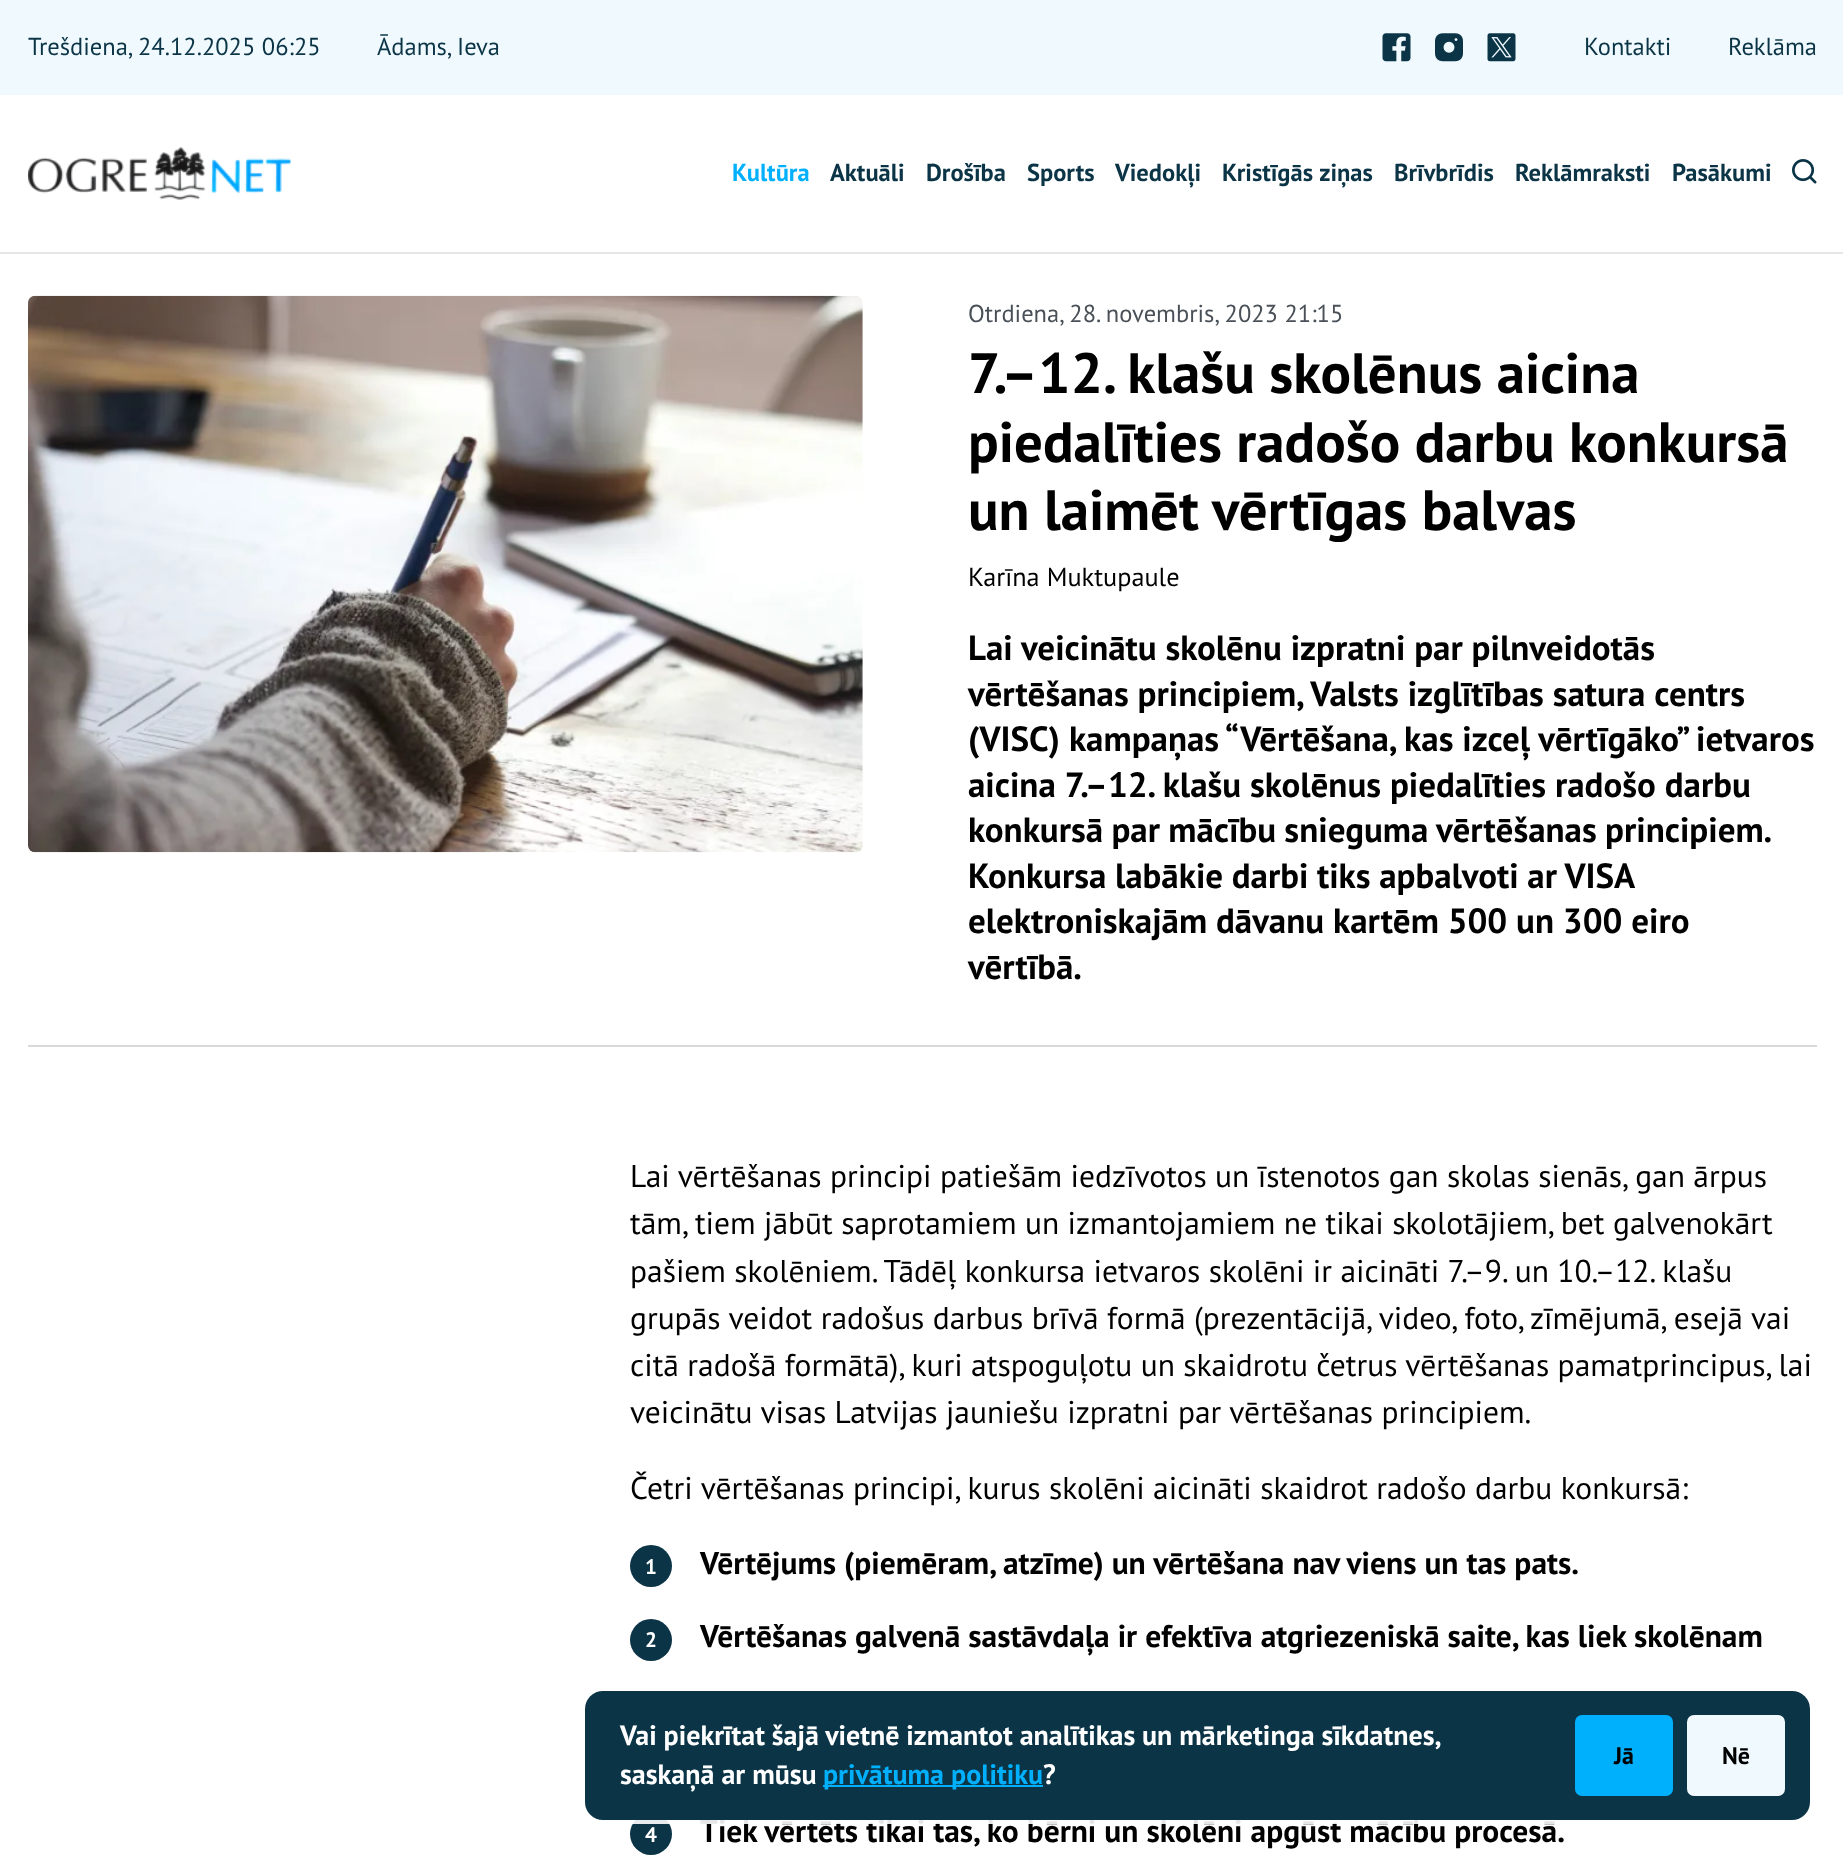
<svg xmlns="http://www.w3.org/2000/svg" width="1843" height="1855">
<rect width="100%" height="100%" fill="#fff"/>
<rect width="1843" height="95" fill="#f0fafe"/>
<text x="28" y="55" style="font-family:PT Sans;font-size:24.5px;fill:#0b3446">Trešdiena, 24.12.2025 06:25</text>
<text x="377" y="55" style="font-family:PT Sans;font-size:24.5px;fill:#0b3446">Ādams, Ieva</text>
<image x="1382" y="33" width="29" height="29" href="media/1.png"/>
<image x="1435" y="33" width="28" height="29" href="media/2.png"/>
<image x="1487" y="33" width="29" height="29" href="media/3.png"/>
<text x="1584" y="55" style="font-family:PT Sans;font-size:24.5px;fill:#0b3446">Kontakti</text>
<text x="1728" y="55" style="font-family:PT Sans;font-size:24.5px;fill:#0b3446">Reklāma</text>
<image x="28" y="147" width="263" height="53" href="media/4.png"/>
<text x="732" y="181" style="font-family:PT Sans;font-size:24.5px;font-weight:bold;fill:#00b0fd">Kultūra</text>
<text x="830" y="181" style="font-family:PT Sans;font-size:24.5px;font-weight:bold;fill:#0b3446">Aktuāli</text>
<text x="926" y="181" style="font-family:PT Sans;font-size:24.5px;font-weight:bold;fill:#0b3446">Drošība</text>
<text x="1027" y="181" style="font-family:PT Sans;font-size:24.5px;font-weight:bold;fill:#0b3446">Sports</text>
<text x="1115" y="181" style="font-family:PT Sans;font-size:24.5px;font-weight:bold;fill:#0b3446">Viedokļi</text>
<text x="1222" y="181" style="font-family:PT Sans;font-size:24.5px;font-weight:bold;fill:#0b3446">Kristīgās ziņas</text>
<text x="1394" y="181" style="font-family:PT Sans;font-size:24.5px;font-weight:bold;fill:#0b3446">Brīvbrīdis</text>
<text x="1515" y="181" style="font-family:PT Sans;font-size:24.5px;font-weight:bold;fill:#0b3446">Reklāmraksti</text>
<text x="1672" y="181" style="font-family:PT Sans;font-size:24.5px;font-weight:bold;fill:#0b3446">Pasākumi</text>
<image x="1792" y="159" width="25" height="25" href="media/5.png"/>
<rect y="252" width="1843" height="2" fill="#e6e6e6"/>
<rect x="28" y="1045" width="1789" height="2" fill="#d9d9d9"/>
<image x="28" y="295" width="835" height="558" href="media/6.png"/>
<text x="968" y="322" style="font-family:PT Sans;font-size:24.5px;fill:#495057">Otrdiena, 28. novembris, 2023 21:15</text>
<text x="968" y="393" style="font-family:PT Sans;font-size:56.9px;font-weight:bold;fill:#000">7.–12. klašu skolēnus aicina</text>
<text x="968" y="462" style="font-family:PT Sans;font-size:56.9px;font-weight:bold;fill:#000">piedalīties radošo darbu konkursā</text>
<text x="968" y="530" style="font-family:PT Sans;font-size:56.9px;font-weight:bold;fill:#000">un laimēt vērtīgas balvas</text>
<text x="968" y="586" style="font-family:PT Sans;font-size:26.25px;fill:#000">Karīna Muktupaule</text>
<text x="968" y="660" style="font-family:PT Sans;font-size:35px;font-weight:bold;fill:#000">Lai veicinātu skolēnu izpratni par pilnveidotās</text>
<text x="968" y="706" style="font-family:PT Sans;font-size:35px;font-weight:bold;fill:#000">vērtēšanas principiem, Valsts izglītības satura centrs</text>
<text x="968" y="751" style="font-family:PT Sans;font-size:35px;font-weight:bold;fill:#000">(VISC) kampaņas “Vērtēšana, kas izceļ vērtīgāko” ietvaros</text>
<text x="968" y="797" style="font-family:PT Sans;font-size:35px;font-weight:bold;fill:#000">aicina 7.–12. klašu skolēnus piedalīties radošo darbu</text>
<text x="968" y="842" word-spacing="-0.5" style="font-family:PT Sans;font-size:35px;font-weight:bold;fill:#000">konkursā par mācību snieguma vērtēšanas principiem.</text>
<text x="968" y="888" word-spacing="-0.25" style="font-family:PT Sans;font-size:35px;font-weight:bold;fill:#000">Konkursa labākie darbi tiks apbalvoti ar VISA</text>
<text x="968" y="933" style="font-family:PT Sans;font-size:35px;font-weight:bold;fill:#000">elektroniskajām dāvanu kartēm 500 un 300 eiro</text>
<text x="968" y="979" style="font-family:PT Sans;font-size:35px;font-weight:bold;fill:#000">vērtībā.</text>
<text x="630" y="1187" style="font-family:PT Sans;font-size:31.5px;fill:#000">Lai vērtēšanas principi patiešām iedzīvotos un īstenotos gan skolas sienās, gan ārpus</text>
<text x="630" y="1234" style="font-family:PT Sans;font-size:31.5px;fill:#000">tām, tiem jābūt saprotamiem un izmantojamiem ne tikai skolotājiem, bet galvenokārt</text>
<text x="630" y="1282" style="font-family:PT Sans;font-size:31.5px;fill:#000">pašiem skolēniem. Tādēļ konkursa ietvaros skolēni ir aicināti 7.–9. un 10.–12. klašu</text>
<text x="630" y="1329" style="font-family:PT Sans;font-size:31.5px;fill:#000">grupās veidot radošus darbus brīvā formā (prezentācijā, video, foto, zīmējumā, esejā vai</text>
<text x="630" y="1376" style="font-family:PT Sans;font-size:31.5px;fill:#000">citā radošā formātā), kuri atspoguļotu un skaidrotu četrus vērtēšanas pamatprincipus, lai</text>
<text x="630" y="1423" style="font-family:PT Sans;font-size:31.5px;fill:#000">veicinātu visas Latvijas jauniešu izpratni par vērtēšanas principiem.</text>
<text x="630" y="1499" style="font-family:PT Sans;font-size:31.5px;fill:#000">Četri vērtēšanas principi, kurus skolēni aicināti skaidrot radošo darbu konkursā:</text>
<circle cx="651" cy="1566" r="21" fill="#0b3446"/>
<text x="645" y="1574" style="font-family:PT Sans;font-size:21px;font-weight:bold;fill:#fff">1</text>
<text x="700" y="1574" style="font-family:PT Sans;font-size:31.5px;font-weight:bold;fill:#000">Vērtējums (piemēram, atzīme) un vērtēšana nav viens un tas pats.</text>
<circle cx="651" cy="1640" r="21" fill="#0b3446"/>
<text x="645" y="1647" style="font-family:PT Sans;font-size:21px;font-weight:bold;fill:#fff">2</text>
<text x="700" y="1647" style="font-family:PT Sans;font-size:31.5px;font-weight:bold;fill:#000">Vērtēšanas galvenā sastāvdaļa ir efektīva atgriezeniskā saite, kas liek skolēnam</text>
<circle cx="651" cy="1834" r="21" fill="#0b3446"/>
<text x="645" y="1842" style="font-family:PT Sans;font-size:21px;font-weight:bold;fill:#fff">4</text>
<text x="700" y="1842" style="font-family:PT Sans;font-size:31.5px;font-weight:bold;fill:#000">Tiek vērtēts tikai tas, ko bērni un skolēni apgūst mācību procesā.</text>
<rect x="583" y="1689" width="1228" height="133" rx="19" fill="none" stroke="#ffffffe6" stroke-width="4"/>
<rect x="585" y="1691" width="1225" height="129" rx="18" fill="#0b3446"/>
<text x="620" y="1745" word-spacing="-0.25" style="font-family:PT Sans;font-size:28px;font-weight:bold;fill:#fff">Vai piekrītat šajā vietnē izmantot analītikas un mārketinga sīkdatnes,</text>
<text x="620" y="1784" style="font-family:PT Sans;font-size:28px;font-weight:bold;fill:#fff">saskaņā ar mūsu</text>
<rect x="823" y="1785" width="220" height="2" fill="#00b0fd"/>
<text x="823" y="1784" style="font-family:PT Sans;font-size:28px;font-weight:bold;fill:#00b0fd">privātuma politiku</text>
<text x="1043" y="1784" style="font-family:PT Sans;font-size:28px;font-weight:bold;fill:#fff">?</text>
<rect x="1576" y="1716" width="96" height="79" rx="6" fill="#00b0fd" stroke="#00b0fd" stroke-width="2"/>
<text x="1614" y="1764" style="font-family:PT Sans;font-size:24px;font-weight:bold;fill:#000">Jā</text>
<rect x="1688" y="1716" width="96" height="79" rx="6" fill="#f0fafe" stroke="#f0fafe" stroke-width="2"/>
<text x="1722" y="1764" style="font-family:PT Sans;font-size:24px;font-weight:bold;fill:#000">Nē</text>
</svg>
